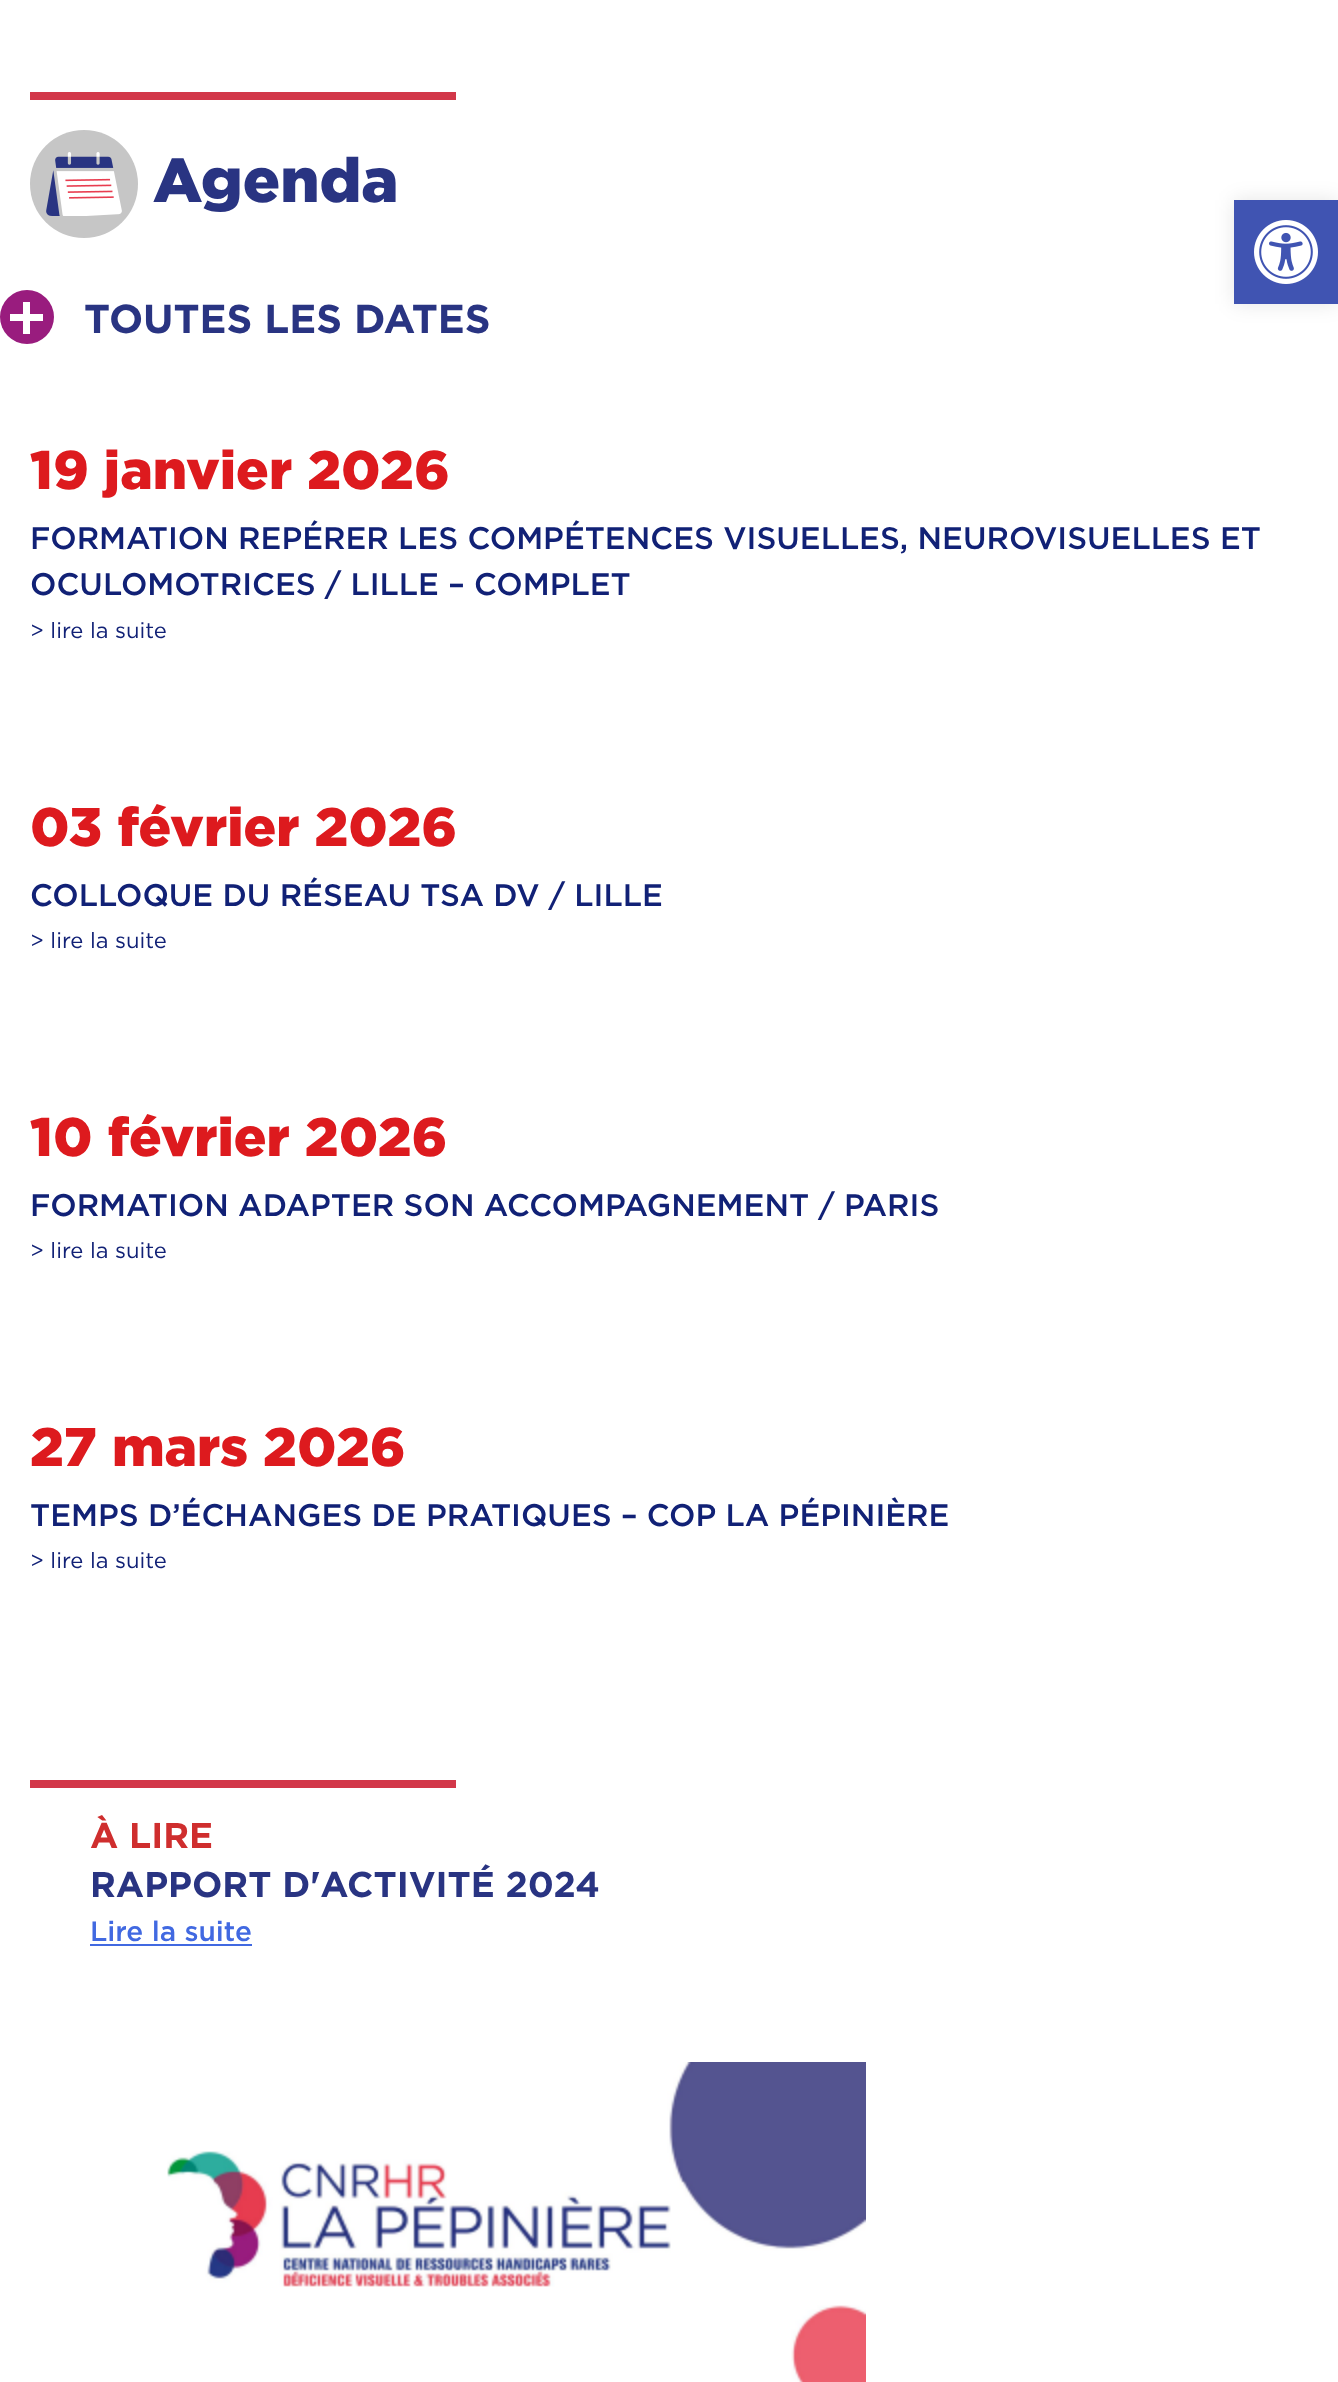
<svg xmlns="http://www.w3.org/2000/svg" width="1338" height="2382">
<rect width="100%" height="100%" fill="#fff"/>
<rect x="30" y="92" width="426" height="8" fill="#d23749"/>
<circle cx="84" cy="184" r="54" fill="#c6c6c6"/>
<image x="46" y="152" width="76" height="64" href="media/1.png"/>
<text x="153" y="202" style="font-family:Gotham;font-size:62px;font-weight:900;fill:#293482">Agenda</text>
<circle cx="27" cy="317" r="27" fill="#991c7e"/>
<rect x="23" y="302" width="7" height="32" fill="#fff"/>
<rect x="10" y="314" width="33" height="7" fill="#fff"/>
<text x="84" y="333" style="font-family:Gotham;font-size:40.25px;font-weight:bold;fill:#293482">TOUTES LES DATES</text>
<text x="30" y="489" style="font-family:Gotham;font-size:54.25px;font-weight:900;fill:#dd1a1e">19 janvier 2026</text>
<text x="30" y="549" style="font-family:Gotham;font-size:31.1px;font-weight:500;fill:#112176">FORMATION REPÉRER LES COMPÉTENCES VISUELLES, NEUROVISUELLES ET</text>
<text x="30" y="595" style="font-family:Gotham;font-size:31.1px;font-weight:500;fill:#112176">OCULOMOTRICES / LILLE – COMPLET</text>
<text x="30" y="638" style="font-family:Gotham;font-size:22px;fill:#112176">&gt; lire la suite</text>
<text x="30" y="846" style="font-family:Gotham;font-size:54.25px;font-weight:900;fill:#dd1a1e">03 février 2026</text>
<text x="30" y="906" style="font-family:Gotham;font-size:31.1px;font-weight:500;fill:#112176">COLLOQUE DU RÉSEAU TSA DV / LILLE</text>
<text x="30" y="948" style="font-family:Gotham;font-size:22px;fill:#112176">&gt; lire la suite</text>
<text x="30" y="1156" style="font-family:Gotham;font-size:54.25px;font-weight:900;fill:#dd1a1e">10 février 2026</text>
<text x="30" y="1216" style="font-family:Gotham;font-size:31.1px;font-weight:500;fill:#112176">FORMATION ADAPTER SON ACCOMPAGNEMENT / PARIS</text>
<text x="30" y="1258" style="font-family:Gotham;font-size:22px;fill:#112176">&gt; lire la suite</text>
<text x="30" y="1466" style="font-family:Gotham;font-size:54.25px;font-weight:900;fill:#dd1a1e">27 mars 2026</text>
<text x="30" y="1526" style="font-family:Gotham;font-size:31.1px;font-weight:500;fill:#112176">TEMPS D’ÉCHANGES DE PRATIQUES – COP LA PÉPINIÈRE</text>
<text x="30" y="1568" style="font-family:Gotham;font-size:22px;fill:#112176">&gt; lire la suite</text>
<rect x="30" y="1780" width="426" height="8" fill="#d23749"/>
<text x="90" y="1848" style="font-family:Gotham;font-size:35.8px;font-weight:bold;fill:#cf2e2e">À LIRE</text>
<text x="90" y="1897" style="font-family:Gotham;font-size:35.8px;font-weight:bold;fill:#293482">RAPPORT D'ACTIVITÉ 2024</text>
<text x="90" y="1941" style="font-family:Gotham;font-size:28px;font-weight:500;fill:#4169e1">Lire la suite</text>
<rect x="90" y="1944" width="162" height="2" fill="#4169e1"/>
<image x="167" y="2062" width="699" height="320" href="media/2.png"/>
<rect x="1234" y="200" width="104" height="104" fill="#0000001a" filter="blur(10px)"/>
<rect x="1234" y="200" width="104" height="104" fill="#4054b2"/>
<image x="1254" y="220" width="64" height="64" href="media/3.png"/>
</svg>
